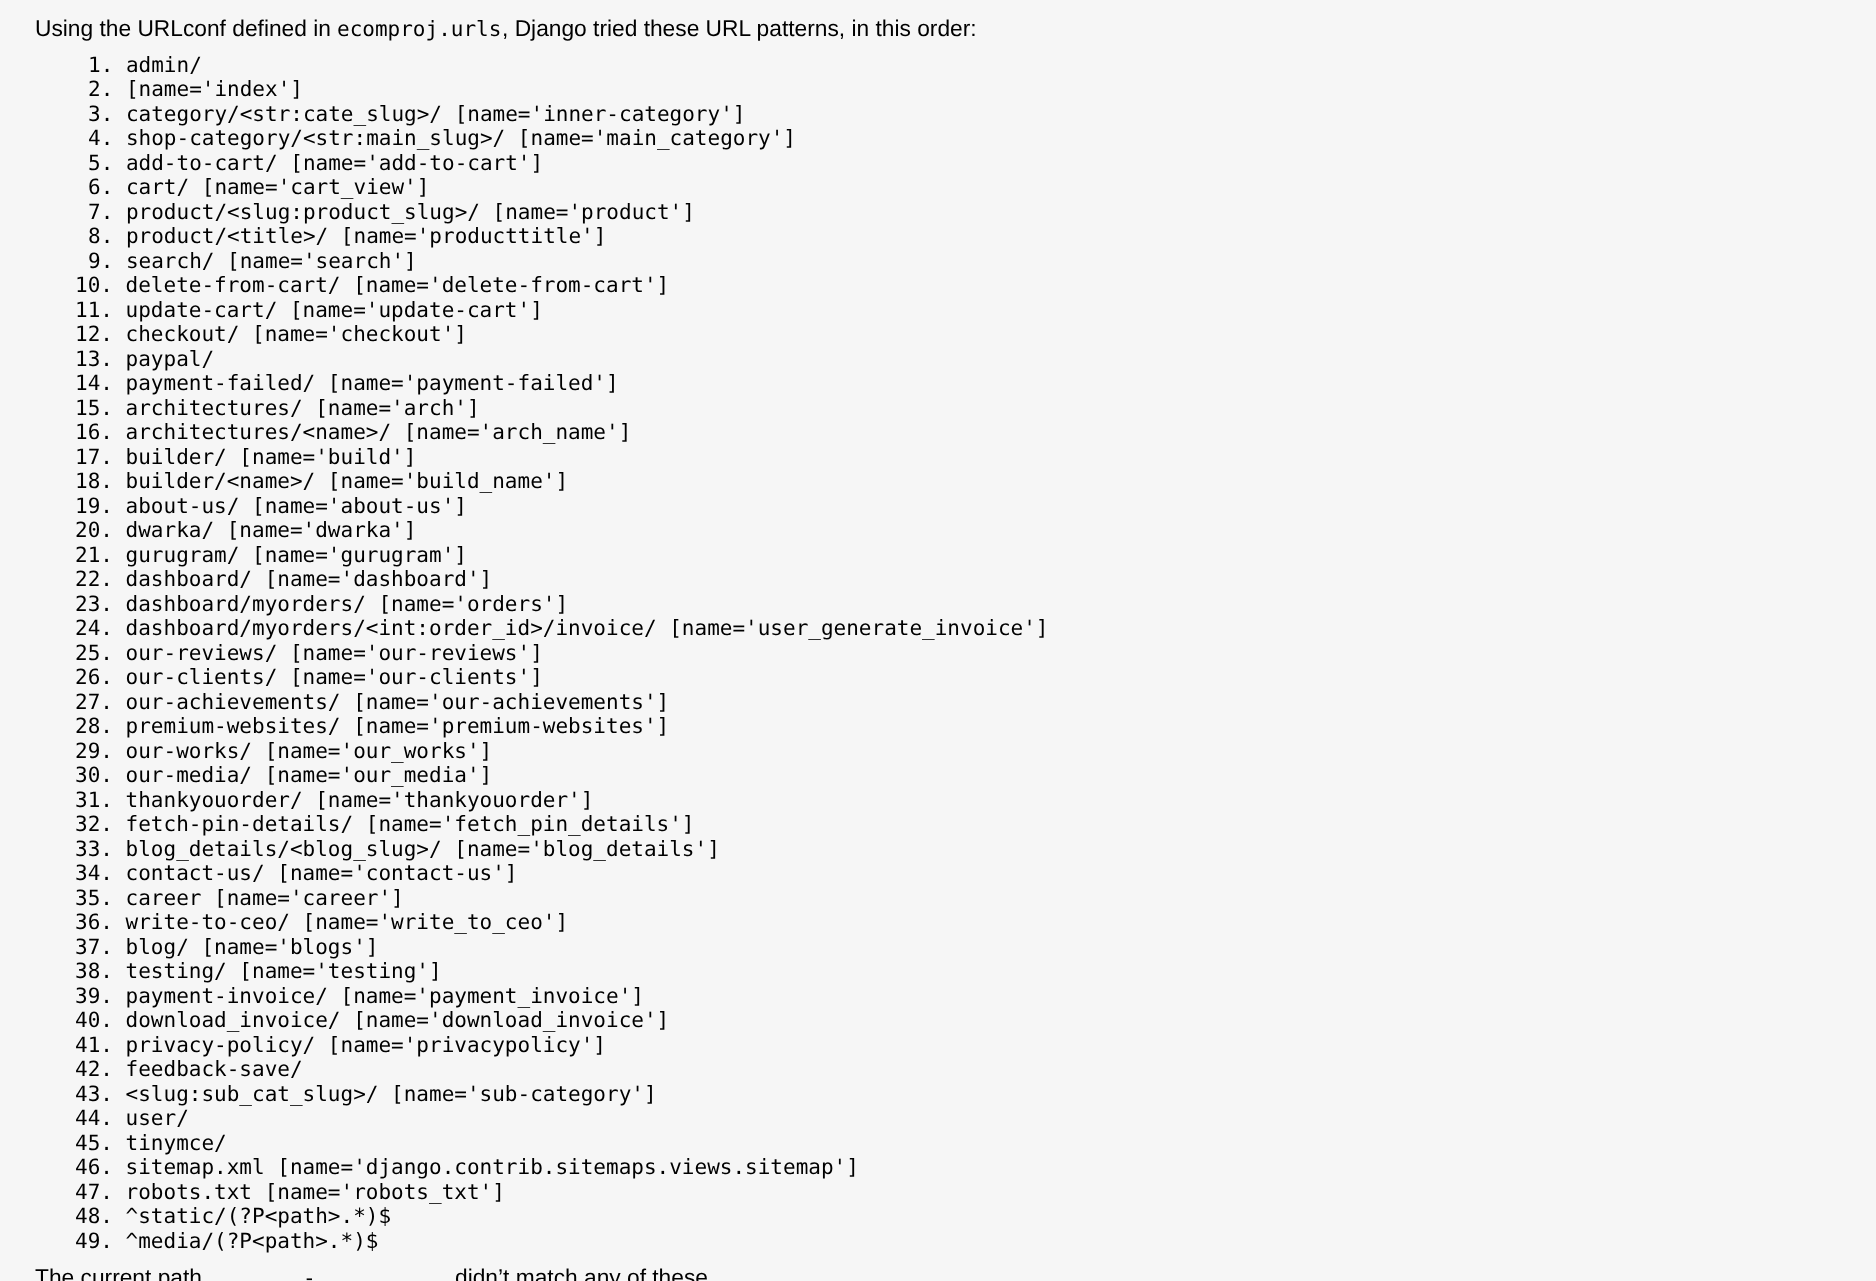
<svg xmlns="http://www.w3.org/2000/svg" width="1876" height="1281">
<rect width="100%" height="100%" fill="#f6f6f6"/>
<text x="35" y="36" style="font-family:Liberation Sans;font-size:22.75px;fill:#000">Using the URLconf defined in</text>
<text x="337" y="36" style="font-family:DejaVu Sans Mono;font-size:21px;fill:#000">ecomproj.urls</text>
<text x="502" y="36" style="font-family:Liberation Sans;font-size:22.75px;fill:#000">, Django tried these URL patterns, in this order:</text>
<text x="88" y="72" style="font-family:DejaVu Sans Mono;font-size:21px;fill:#000">1. admin/</text>
<text x="88" y="96" style="font-family:DejaVu Sans Mono;font-size:21px;fill:#000">2. [name='index']</text>
<text x="88" y="121" style="font-family:DejaVu Sans Mono;font-size:21px;fill:#000">3. category/&lt;str:cate_slug&gt;/ [name='inner-category']</text>
<text x="88" y="145" style="font-family:DejaVu Sans Mono;font-size:21px;fill:#000">4. shop-category/&lt;str:main_slug&gt;/ [name='main_category']</text>
<text x="88" y="170" style="font-family:DejaVu Sans Mono;font-size:21px;fill:#000">5. add-to-cart/ [name='add-to-cart']</text>
<text x="88" y="194" style="font-family:DejaVu Sans Mono;font-size:21px;fill:#000">6. cart/ [name='cart_view']</text>
<text x="88" y="219" style="font-family:DejaVu Sans Mono;font-size:21px;fill:#000">7. product/&lt;slug:product_slug&gt;/ [name='product']</text>
<text x="88" y="243" style="font-family:DejaVu Sans Mono;font-size:21px;fill:#000">8. product/&lt;title&gt;/ [name='producttitle']</text>
<text x="88" y="268" style="font-family:DejaVu Sans Mono;font-size:21px;fill:#000">9. search/ [name='search']</text>
<text x="75" y="292" style="font-family:DejaVu Sans Mono;font-size:21px;fill:#000">10. delete-from-cart/ [name='delete-from-cart']</text>
<text x="75" y="317" style="font-family:DejaVu Sans Mono;font-size:21px;fill:#000">11. update-cart/ [name='update-cart']</text>
<text x="75" y="341" style="font-family:DejaVu Sans Mono;font-size:21px;fill:#000">12. checkout/ [name='checkout']</text>
<text x="75" y="366" style="font-family:DejaVu Sans Mono;font-size:21px;fill:#000">13. paypal/</text>
<text x="75" y="390" style="font-family:DejaVu Sans Mono;font-size:21px;fill:#000">14. payment-failed/ [name='payment-failed']</text>
<text x="75" y="415" style="font-family:DejaVu Sans Mono;font-size:21px;fill:#000">15. architectures/ [name='arch']</text>
<text x="75" y="439" style="font-family:DejaVu Sans Mono;font-size:21px;fill:#000">16. architectures/&lt;name&gt;/ [name='arch_name']</text>
<text x="75" y="464" style="font-family:DejaVu Sans Mono;font-size:21px;fill:#000">17. builder/ [name='build']</text>
<text x="75" y="488" style="font-family:DejaVu Sans Mono;font-size:21px;fill:#000">18. builder/&lt;name&gt;/ [name='build_name']</text>
<text x="75" y="513" style="font-family:DejaVu Sans Mono;font-size:21px;fill:#000">19. about-us/ [name='about-us']</text>
<text x="75" y="537" style="font-family:DejaVu Sans Mono;font-size:21px;fill:#000">20. dwarka/ [name='dwarka']</text>
<text x="75" y="562" style="font-family:DejaVu Sans Mono;font-size:21px;fill:#000">21. gurugram/ [name='gurugram']</text>
<text x="75" y="586" style="font-family:DejaVu Sans Mono;font-size:21px;fill:#000">22. dashboard/ [name='dashboard']</text>
<text x="75" y="611" style="font-family:DejaVu Sans Mono;font-size:21px;fill:#000">23. dashboard/myorders/ [name='orders']</text>
<text x="75" y="635" style="font-family:DejaVu Sans Mono;font-size:21px;fill:#000">24. dashboard/myorders/&lt;int:order_id&gt;/invoice/ [name='user_generate_invoice']</text>
<text x="75" y="660" style="font-family:DejaVu Sans Mono;font-size:21px;fill:#000">25. our-reviews/ [name='our-reviews']</text>
<text x="75" y="684" style="font-family:DejaVu Sans Mono;font-size:21px;fill:#000">26. our-clients/ [name='our-clients']</text>
<text x="75" y="709" style="font-family:DejaVu Sans Mono;font-size:21px;fill:#000">27. our-achievements/ [name='our-achievements']</text>
<text x="75" y="733" style="font-family:DejaVu Sans Mono;font-size:21px;fill:#000">28. premium-websites/ [name='premium-websites']</text>
<text x="75" y="758" style="font-family:DejaVu Sans Mono;font-size:21px;fill:#000">29. our-works/ [name='our_works']</text>
<text x="75" y="782" style="font-family:DejaVu Sans Mono;font-size:21px;fill:#000">30. our-media/ [name='our_media']</text>
<text x="75" y="807" style="font-family:DejaVu Sans Mono;font-size:21px;fill:#000">31. thankyouorder/ [name='thankyouorder']</text>
<text x="75" y="831" style="font-family:DejaVu Sans Mono;font-size:21px;fill:#000">32. fetch-pin-details/ [name='fetch_pin_details']</text>
<text x="75" y="856" style="font-family:DejaVu Sans Mono;font-size:21px;fill:#000">33. blog_details/&lt;blog_slug&gt;/ [name='blog_details']</text>
<text x="75" y="880" style="font-family:DejaVu Sans Mono;font-size:21px;fill:#000">34. contact-us/ [name='contact-us']</text>
<text x="75" y="905" style="font-family:DejaVu Sans Mono;font-size:21px;fill:#000">35. career [name='career']</text>
<text x="75" y="929" style="font-family:DejaVu Sans Mono;font-size:21px;fill:#000">36. write-to-ceo/ [name='write_to_ceo']</text>
<text x="75" y="954" style="font-family:DejaVu Sans Mono;font-size:21px;fill:#000">37. blog/ [name='blogs']</text>
<text x="75" y="978" style="font-family:DejaVu Sans Mono;font-size:21px;fill:#000">38. testing/ [name='testing']</text>
<text x="75" y="1003" style="font-family:DejaVu Sans Mono;font-size:21px;fill:#000">39. payment-invoice/ [name='payment_invoice']</text>
<text x="75" y="1027" style="font-family:DejaVu Sans Mono;font-size:21px;fill:#000">40. download_invoice/ [name='download_invoice']</text>
<text x="75" y="1052" style="font-family:DejaVu Sans Mono;font-size:21px;fill:#000">41. privacy-policy/ [name='privacypolicy']</text>
<text x="75" y="1076" style="font-family:DejaVu Sans Mono;font-size:21px;fill:#000">42. feedback-save/</text>
<text x="75" y="1101" style="font-family:DejaVu Sans Mono;font-size:21px;fill:#000">43. &lt;slug:sub_cat_slug&gt;/ [name='sub-category']</text>
<text x="75" y="1125" style="font-family:DejaVu Sans Mono;font-size:21px;fill:#000">44. user/</text>
<text x="75" y="1150" style="font-family:DejaVu Sans Mono;font-size:21px;fill:#000">45. tinymce/</text>
<text x="75" y="1174" style="font-family:DejaVu Sans Mono;font-size:21px;fill:#000">46. sitemap.xml [name='django.contrib.sitemaps.views.sitemap']</text>
<text x="75" y="1199" style="font-family:DejaVu Sans Mono;font-size:21px;fill:#000">47. robots.txt [name='robots_txt']</text>
<text x="75" y="1223" style="font-family:DejaVu Sans Mono;font-size:21px;fill:#000">48. ^static/(?P&lt;path&gt;.*)$</text>
<text x="75" y="1248" style="font-family:DejaVu Sans Mono;font-size:21px;fill:#000">49. ^media/(?P&lt;path&gt;.*)$</text>
<text x="35" y="1285" style="font-family:Liberation Sans;font-size:22.75px;fill:#000">The current path</text>
<text x="303" y="1285" style="font-family:DejaVu Sans Mono;font-size:21px;fill:#000">-</text>
<text x="455" y="1285" style="font-family:Liberation Sans;font-size:22.75px;fill:#000">didn’t match any of these</text>
</svg>
